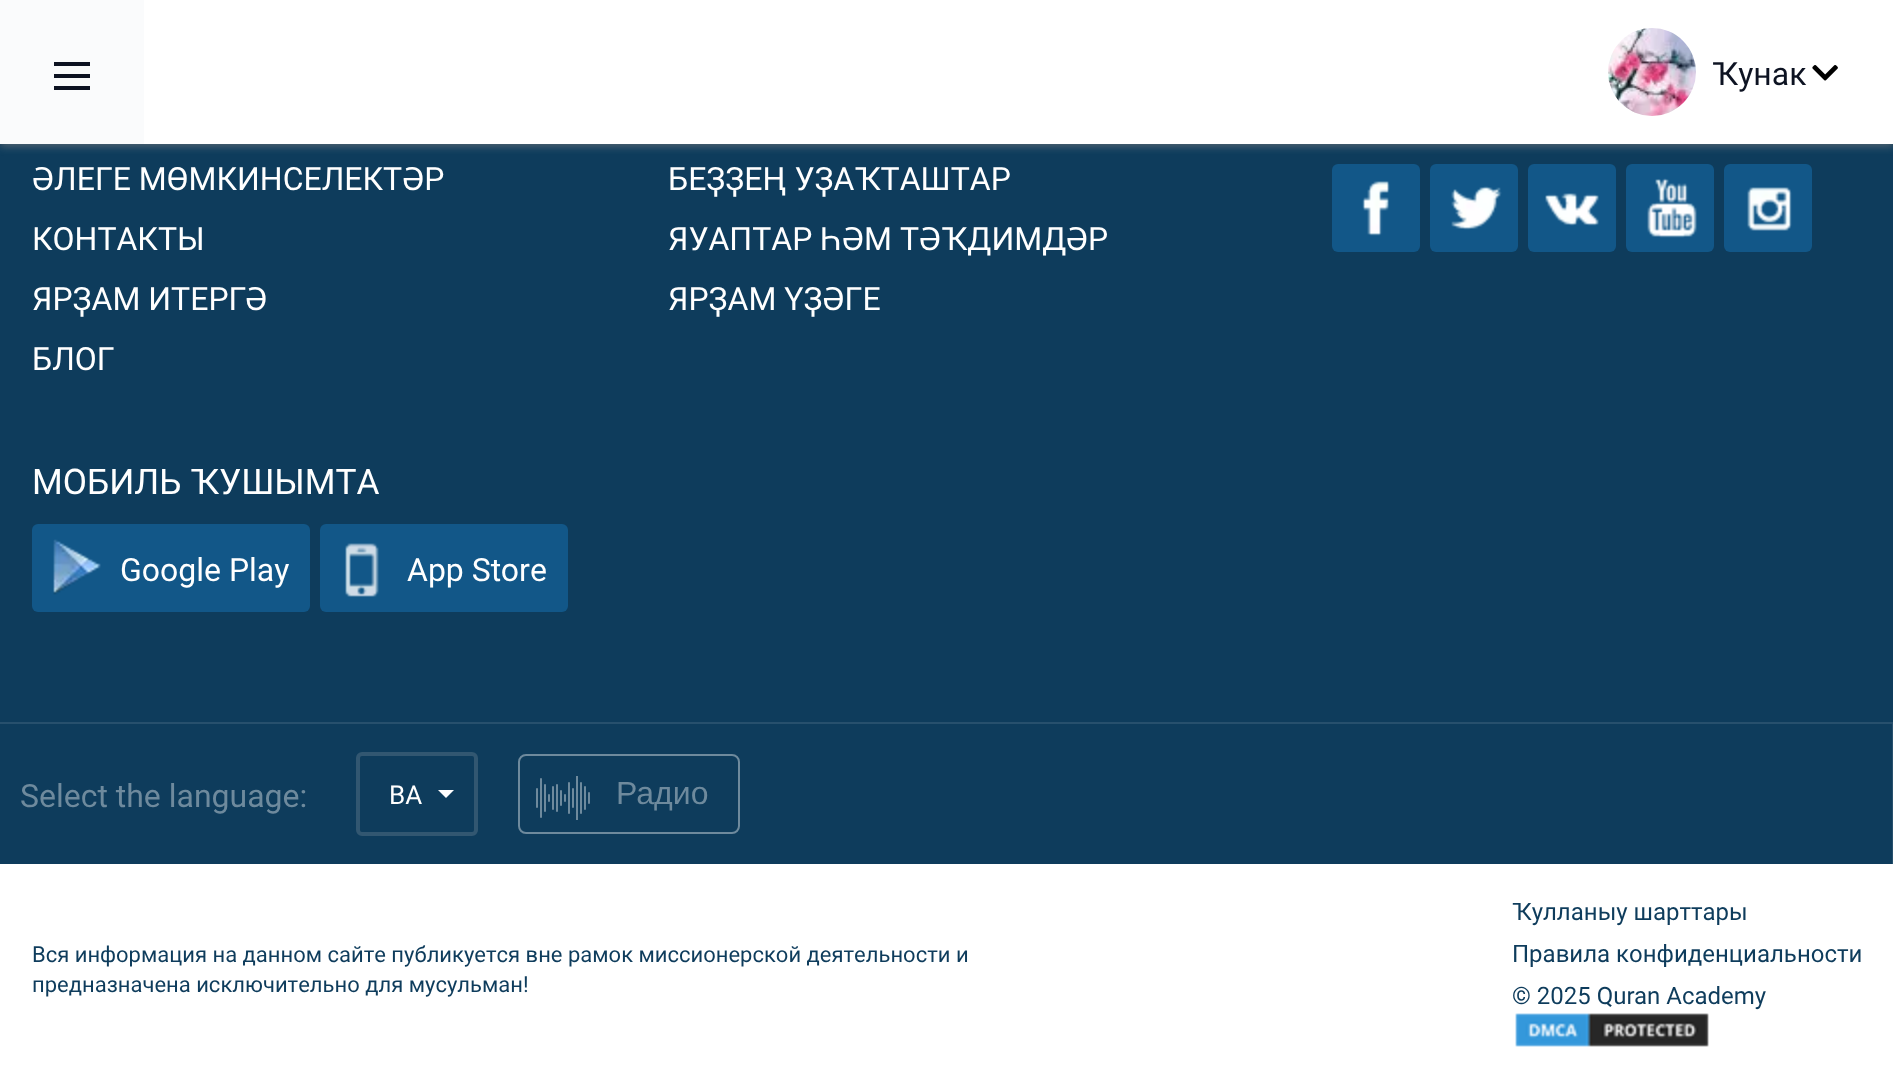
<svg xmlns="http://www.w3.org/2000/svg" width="1893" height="1071">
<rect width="100%" height="100%" fill="#0e3c5c"/>
<rect y="2" width="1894" height="144" fill="#00000033" filter="blur(2px)"/>
<rect y="2" width="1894" height="144" fill="#aaaaaa80" filter="blur(4px)"/>
<rect x="144" width="1749" height="144" fill="#fff"/>
<rect width="144" height="144" fill="#fafbfc"/>
<rect x="54" y="62" width="36" height="4" fill="#0d1322"/>
<rect x="54" y="74" width="36" height="4" fill="#0d1322"/>
<rect x="54" y="86" width="36" height="4" fill="#0d1322"/>
<image x="1608" y="28" width="88" height="88" href="media/1.png"/>
<text x="1712" y="85" style="font-family:Roboto;font-size:32px;fill:#0d1322">Ҡунак</text>
<image x="1812" y="65" width="26" height="16" href="media/2.png"/>
<text x="32" y="190" style="font-family:Roboto;font-size:32px;fill:#fff">ӘЛЕГЕ МӨМКИНСЕЛЕКТӘР</text>
<text x="32" y="250" style="font-family:Roboto;font-size:32px;fill:#fff">КОНТАКТЫ</text>
<text x="32" y="310" style="font-family:Roboto;font-size:32px;fill:#fff">ЯРҘАМ ИТЕРГӘ</text>
<text x="32" y="370" style="font-family:Roboto;font-size:32px;fill:#fff">БЛОГ</text>
<text x="668" y="190" style="font-family:Roboto;font-size:32px;fill:#fff">БЕҘҘЕҢ УҘАҠТАШТАР</text>
<text x="668" y="250" style="font-family:Roboto;font-size:32px;fill:#fff">ЯУАПТАР ҺӘМ ТӘҠДИМДӘР</text>
<text x="668" y="310" style="font-family:Roboto;font-size:32px;fill:#fff">ЯРҘАМ ҮҘӘГЕ</text>
<rect x="1332" y="164" width="88" height="88" rx="6" fill="#125788"/>
<image x="1362" y="181" width="28" height="55" href="media/3.png"/>
<rect x="1430" y="164" width="88" height="88" rx="6" fill="#125788"/>
<image x="1451" y="186" width="51" height="44" href="media/4.png"/>
<rect x="1528" y="164" width="88" height="88" rx="6" fill="#125788"/>
<image x="1545" y="193" width="54" height="33" href="media/5.png"/>
<rect x="1626" y="164" width="88" height="88" rx="6" fill="#125788"/>
<image x="1647" y="178" width="50" height="60" href="media/6.png"/>
<rect x="1724" y="164" width="88" height="88" rx="6" fill="#125788"/>
<image x="1747" y="187" width="45" height="44" href="media/7.png"/>
<text x="32" y="494" style="font-family:Roboto;font-size:35.25px;fill:#fff">МОБИЛЬ ҠУШЫМТА</text>
<rect x="32" y="524" width="278" height="88" rx="6" fill="#125788"/>
<image x="53" y="539" width="48" height="56" href="media/8.png"/>
<text x="120" y="581" style="font-family:Roboto;font-size:32px;fill:#fff">Google Play</text>
<rect x="320" y="524" width="248" height="88" rx="6" fill="#125788"/>
<image x="345" y="543" width="34" height="54" href="media/9.png"/>
<text x="407" y="581" style="font-family:Roboto;font-size:32px;fill:#fff">App Store</text>
<rect y="722" width="1893" height="2" fill="#27506d"/>
<rect x="1892" y="724" width="1" height="140" fill="#27506d"/>
<text x="20" y="807" style="font-family:Roboto;font-size:32px;fill:#6e8a9d">Select the language:</text>
<rect x="358" y="754" width="118" height="80" rx="4" fill="none" stroke="#325771" stroke-width="4"/>
<text x="389" y="804" style="font-family:Roboto;font-size:26px;fill:#fff">BA</text>
<path d="M438 790h16l-8 8z" fill="#fff"/>
<rect x="519" y="755" width="220" height="78" rx="7" fill="none" stroke="#6e8a9d" stroke-width="2"/>
<image x="536" y="776" width="54" height="44" href="media/10.png"/>
<text x="616" y="804" style="font-family:Liberation Sans;font-size:32px;fill:#6e8a9d">Радио</text>
<rect y="864" width="1893" height="207" fill="#fff"/>
<text x="32" y="962" style="font-family:Roboto;font-size:22px;fill:#0e3c5c">Вся информация на данном сайте публикуется вне рамок миссионерской деятельности и</text>
<text x="32" y="992" style="font-family:Roboto;font-size:22px;fill:#0e3c5c">предназначена исключительно для мусульман!</text>
<text x="1512" y="920" style="font-family:Roboto;font-size:24px;fill:#0e3c5c">Ҡулланыу шарттары</text>
<text x="1512" y="962" style="font-family:Roboto;font-size:24px;fill:#0e3c5c">Правила конфиденциальности</text>
<text x="1512" y="1004" style="font-family:Roboto;font-size:24px;fill:#0e3c5c">© 2025 Quran Academy</text>
<image x="1515" y="1013" width="194" height="34" href="media/11.png"/>
</svg>
